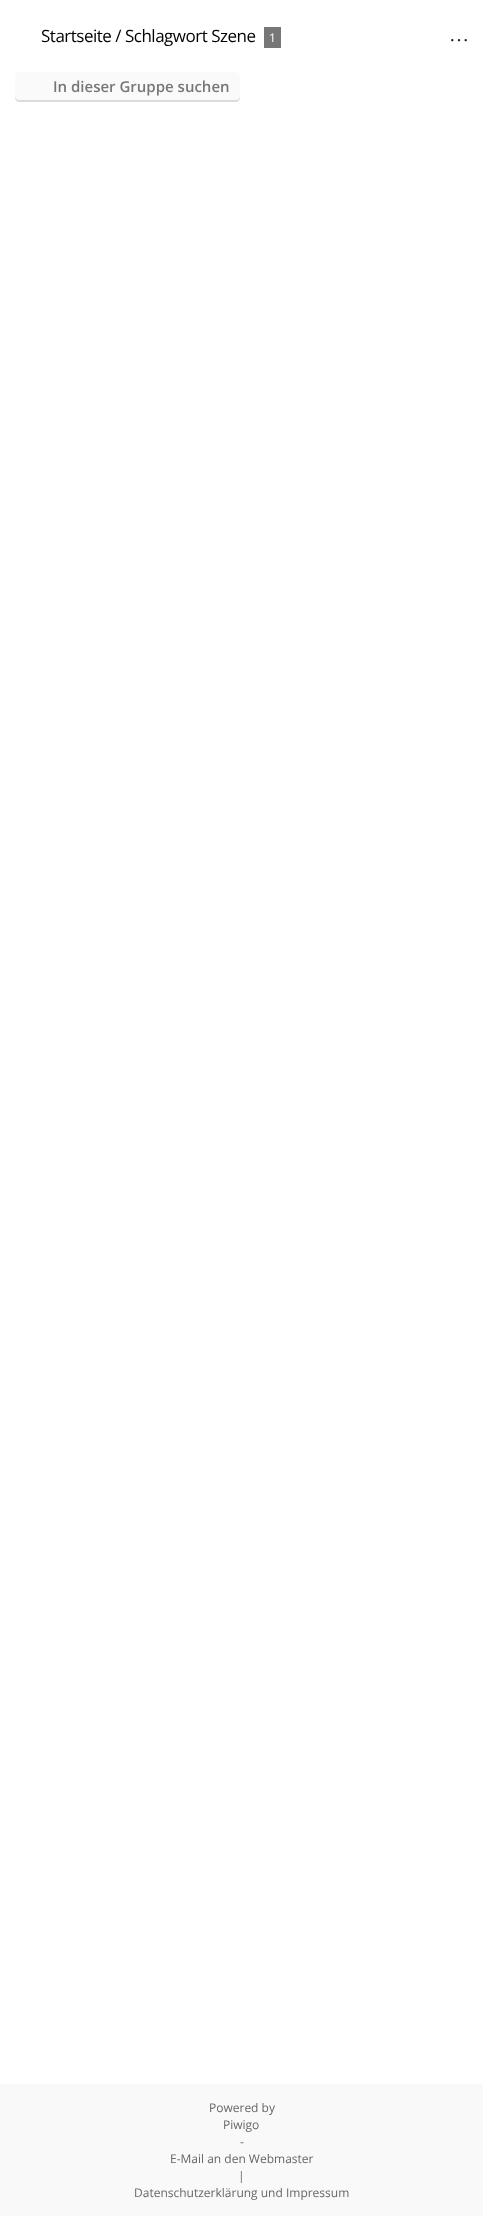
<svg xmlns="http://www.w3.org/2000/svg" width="483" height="2216">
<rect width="100%" height="100%" fill="#fff"/>
<text x="41" y="42" style="font-family:Open Sans;font-size:17px;letter-spacing:-0.5px;fill:#000">Startseite / Schlagwort Szene</text>
<rect x="264" y="27" width="17" height="21" fill="#777"/>
<text x="269" y="42" style="font-family:Open Sans;font-size:12px;letter-spacing:-0.5px;fill:#fff">1</text>
<text x="449" y="41" style="font-family:Liberation Serif;font-size:20px;fill:#1a1a1a">…</text>
<path d="M15 95v2c0 3 2 5 5 5h215c3 0 5-2 5-5v-2c0 3-2 5-5 5h-215c-3 0-5-2-5-5z" fill="#dbdbdb"/>
<rect x="15" y="72" width="225" height="28" rx="5" fill="#fafafa"/>
<text x="53" y="92" style="font-family:Open Sans;font-size:15px;font-weight:600;fill:#777">In dieser Gruppe suchen</text>
<rect y="2084" width="483" height="132" fill="#f9f9f9"/>
<text x="209" y="2112" style="font-family:Open Sans;font-size:12px;fill:#666">Powered by</text>
<text x="223" y="2129" style="font-family:Open Sans;font-size:12px;fill:#666">Piwigo</text>
<text x="240" y="2146" style="font-family:Open Sans;font-size:12px;fill:#666">-</text>
<text x="170" y="2163" style="font-family:Open Sans;font-size:12px;fill:#666">E-Mail an den Webmaster</text>
<text x="238" y="2180" style="font-family:Open Sans;font-size:12px;fill:#666">|</text>
<text x="134" y="2197" style="font-family:Open Sans;font-size:12px;fill:#666">Datenschutzerklärung und Impressum</text>
</svg>
